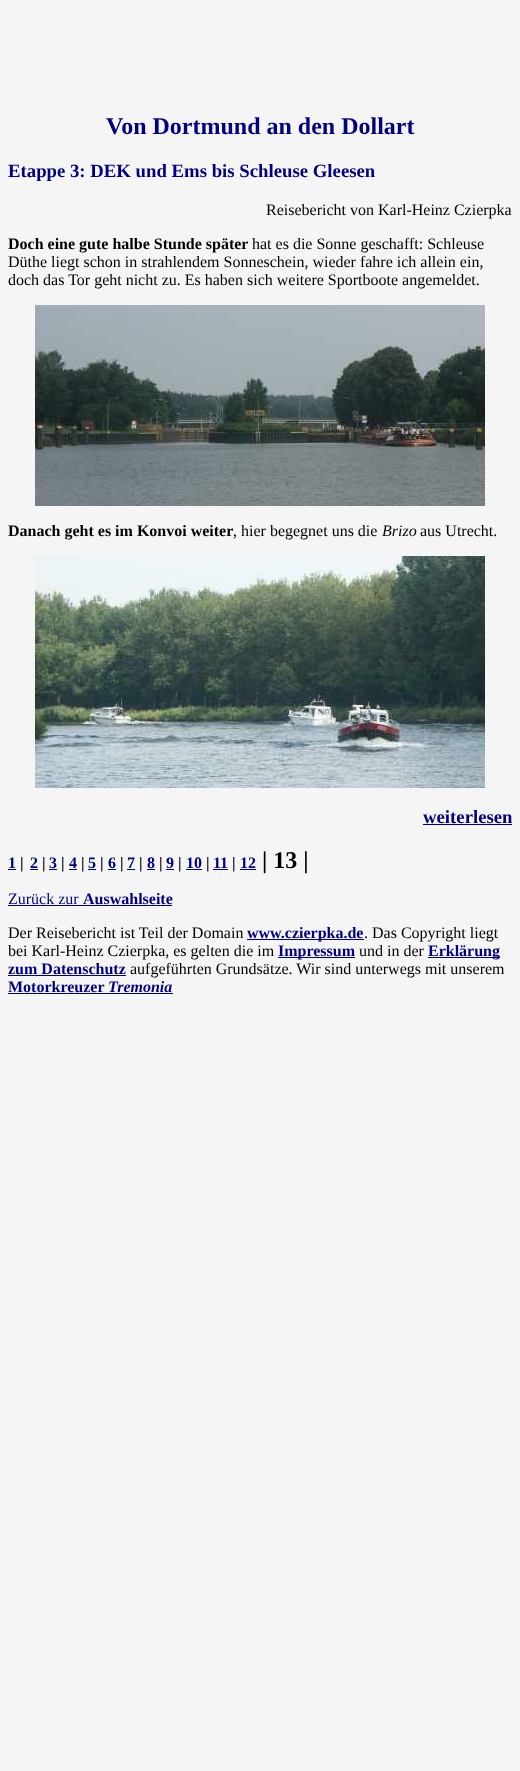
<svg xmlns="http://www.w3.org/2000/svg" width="520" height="1771">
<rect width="100%" height="100%" fill="#f5f5f5"/>
<text x="106" y="134" style="font-family:Liberation Serif;font-size:24px;font-weight:bold;fill:#000080">Von Dortmund an den Dollart</text>
<text x="8" y="177" style="font-family:Liberation Serif;font-size:18.75px;font-weight:bold;fill:#000080">Etappe 3: DEK und Ems bis Schleuse Gleesen</text>
<text x="266" y="215" style="font-family:Liberation Serif;font-size:16px;fill:#000">Reisebericht von Karl-Heinz Czierpka</text>
<text x="8" y="249" style="font-family:Liberation Serif;font-size:16px;font-weight:bold;fill:#000">Doch eine gute halbe Stunde später</text>
<text x="252" y="249" style="font-family:Liberation Serif;font-size:16px;fill:#000">hat es die Sonne geschafft: Schleuse</text>
<text x="8" y="267" style="font-family:Liberation Serif;font-size:16px;fill:#000">Düthe liegt schon in strahlendem Sonneschein, wieder fahre ich allein ein,</text>
<text x="8" y="285" style="font-family:Liberation Serif;font-size:16px;fill:#000">doch das Tor geht nicht zu. Es haben sich weitere Sportboote angemeldet.</text>
<image x="35" y="305" width="450" height="201" href="media/1.png"/>
<text x="8" y="536" style="font-family:Liberation Serif;font-size:16px;font-weight:bold;fill:#000">Danach geht es im Konvoi weiter</text>
<text x="233" y="536" style="font-family:Liberation Serif;font-size:16px;fill:#000">, hier begegnet uns die</text>
<text x="382" y="536" style="font-family:Liberation Serif;font-size:16px;font-style:italic;fill:#000">Brizo</text>
<text x="420" y="536" style="font-family:Liberation Serif;font-size:16px;fill:#000">aus Utrecht.</text>
<image x="35" y="556" width="450" height="232" href="media/2.png"/>
<text x="423" y="823" style="font-family:Liberation Serif;font-size:18.75px;font-weight:bold;fill:#000080">weiterlesen</text>
<rect x="423" y="824" width="89" height="1" fill="#000080"/>
<text x="8" y="868" style="font-family:Liberation Serif;font-size:16px;font-weight:bold;fill:#000080">1</text>
<rect x="8" y="869" width="8" height="1" fill="#000080"/>
<text x="20" y="868" style="font-family:Liberation Serif;font-size:16px;font-weight:bold;fill:#000">|</text>
<text x="30" y="868" style="font-family:Liberation Serif;font-size:16px;font-weight:bold;fill:#000080">2</text>
<rect x="30" y="869" width="8" height="1" fill="#000080"/>
<text x="42" y="868" style="font-family:Liberation Serif;font-size:16px;font-weight:bold;fill:#000">|</text>
<text x="49" y="868" style="font-family:Liberation Serif;font-size:16px;font-weight:bold;fill:#000080">3</text>
<rect x="49" y="869" width="8" height="1" fill="#000080"/>
<text x="61" y="868" style="font-family:Liberation Serif;font-size:16px;font-weight:bold;fill:#000">|</text>
<text x="69" y="868" style="font-family:Liberation Serif;font-size:16px;font-weight:bold;fill:#000080">4</text>
<rect x="69" y="869" width="8" height="1" fill="#000080"/>
<text x="81" y="868" style="font-family:Liberation Serif;font-size:16px;font-weight:bold;fill:#000">|</text>
<text x="88" y="868" style="font-family:Liberation Serif;font-size:16px;font-weight:bold;fill:#000080">5</text>
<rect x="88" y="869" width="8" height="1" fill="#000080"/>
<text x="100" y="868" style="font-family:Liberation Serif;font-size:16px;font-weight:bold;fill:#000">|</text>
<text x="108" y="868" style="font-family:Liberation Serif;font-size:16px;font-weight:bold;fill:#000080">6</text>
<rect x="108" y="869" width="8" height="1" fill="#000080"/>
<text x="120" y="868" style="font-family:Liberation Serif;font-size:16px;font-weight:bold;fill:#000">|</text>
<text x="127" y="868" style="font-family:Liberation Serif;font-size:16px;font-weight:bold;fill:#000080">7</text>
<rect x="127" y="869" width="8" height="1" fill="#000080"/>
<text x="139" y="868" style="font-family:Liberation Serif;font-size:16px;font-weight:bold;fill:#000">|</text>
<text x="147" y="868" style="font-family:Liberation Serif;font-size:16px;font-weight:bold;fill:#000080">8</text>
<rect x="147" y="869" width="8" height="1" fill="#000080"/>
<text x="159" y="868" style="font-family:Liberation Serif;font-size:16px;font-weight:bold;fill:#000">|</text>
<text x="166" y="868" style="font-family:Liberation Serif;font-size:16px;font-weight:bold;fill:#000080">9</text>
<rect x="166" y="869" width="8" height="1" fill="#000080"/>
<text x="178" y="868" style="font-family:Liberation Serif;font-size:16px;font-weight:bold;fill:#000">|</text>
<text x="186" y="868" style="font-family:Liberation Serif;font-size:16px;font-weight:bold;fill:#000080">10</text>
<rect x="186" y="869" width="16" height="1" fill="#000080"/>
<text x="206" y="868" style="font-family:Liberation Serif;font-size:16px;font-weight:bold;fill:#000">|</text>
<text x="213" y="868" style="font-family:Liberation Serif;font-size:16px;font-weight:bold;fill:#000080">11</text>
<rect x="213" y="869" width="15" height="1" fill="#000080"/>
<text x="232" y="868" style="font-family:Liberation Serif;font-size:16px;font-weight:bold;fill:#000">|</text>
<text x="240" y="868" style="font-family:Liberation Serif;font-size:16px;font-weight:bold;fill:#000080">12</text>
<rect x="240" y="869" width="16" height="1" fill="#000080"/>
<text x="262" y="868" style="font-family:Liberation Serif;font-size:24px;font-weight:bold;fill:#000">| 13 |</text>
<text x="8" y="904" style="font-family:Liberation Serif;font-size:16px;fill:#000080">Zurück zur</text>
<rect x="8" y="905" width="164" height="1" fill="#000080"/>
<text x="83" y="904" style="font-family:Liberation Serif;font-size:16px;font-weight:bold;fill:#000080">Auswahlseite</text>
<text x="8" y="938" style="font-family:Liberation Serif;font-size:16px;fill:#000">Der Reisebericht ist Teil der Domain</text>
<rect x="247" y="939" width="117" height="1" fill="#000080"/>
<text x="247" y="938" style="font-family:Liberation Serif;font-size:16px;font-weight:bold;fill:#000080">www.czierpka.de</text>
<text x="364" y="938" style="font-family:Liberation Serif;font-size:16px;fill:#000">. Das Copyright liegt</text>
<text x="8" y="956" style="font-family:Liberation Serif;font-size:16px;fill:#000">bei Karl-Heinz Czierpka, es gelten die im</text>
<rect x="278" y="957" width="77" height="1" fill="#000080"/>
<text x="278" y="956" style="font-family:Liberation Serif;font-size:16px;font-weight:bold;fill:#000080">Impressum</text>
<text x="359" y="956" style="font-family:Liberation Serif;font-size:16px;fill:#000">und in der</text>
<rect x="428" y="957" width="72" height="1" fill="#000080"/>
<text x="428" y="956" style="font-family:Liberation Serif;font-size:16px;font-weight:bold;fill:#000080">Erklärung</text>
<text x="8" y="974" style="font-family:Liberation Serif;font-size:16px;font-weight:bold;fill:#000080">zum Datenschutz</text>
<rect x="8" y="975" width="118" height="1" fill="#000080"/>
<text x="130" y="974" style="font-family:Liberation Serif;font-size:16px;fill:#000">aufgeführten Grundsätze. Wir sind unterwegs mit unserem</text>
<text x="8" y="992" style="font-family:Liberation Serif;font-size:16px;font-weight:bold;fill:#000080">Motorkreuzer</text>
<rect x="8" y="993" width="165" height="1" fill="#000080"/>
<text x="108" y="992" style="font-family:Liberation Serif;font-size:16px;font-weight:bold;font-style:italic;fill:#000080">Tremonia</text>
</svg>
